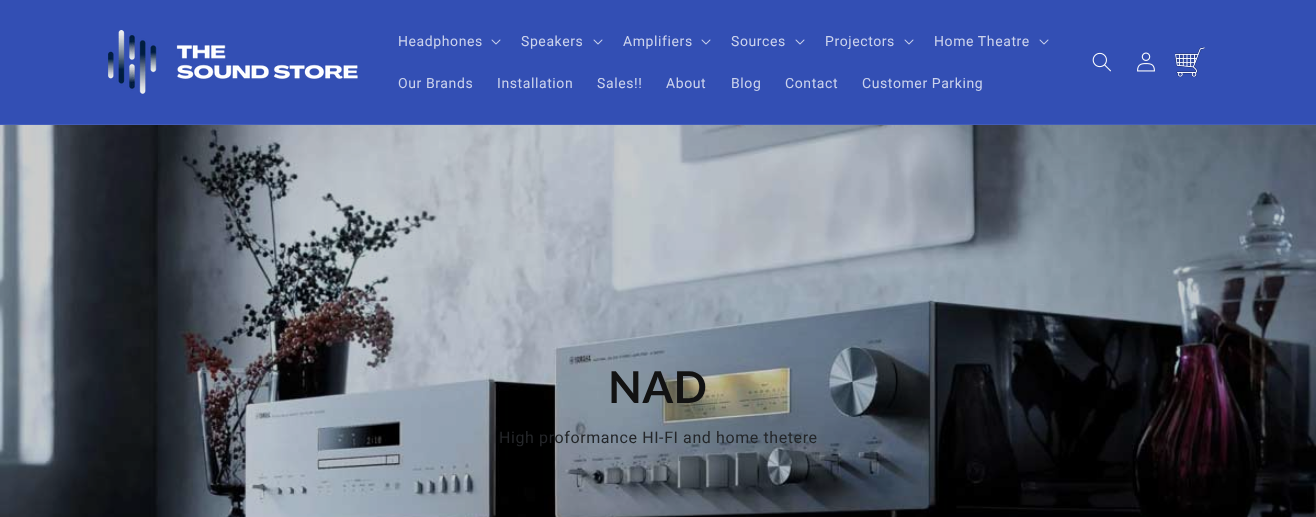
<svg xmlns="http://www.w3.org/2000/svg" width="1316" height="517">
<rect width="100%" height="100%" fill="#fff"/>
<rect width="1316" height="124" fill="#334fb4"/>
<rect y="124" width="1316" height="1" fill="#435dba"/>
<image x="108" y="30" width="250" height="64" href="media/1.png"/>
<text x="398" y="46" style="font-family:Roboto;font-size:14px;letter-spacing:0.6px;fill:#ccd3ec">Headphones</text>
<image x="491" y="39" width="10" height="6" href="media/2.png"/>
<text x="521" y="46" style="font-family:Roboto;font-size:14px;letter-spacing:0.6px;fill:#ccd3ec">Speakers</text>
<image x="593" y="39" width="10" height="6" href="media/2.png"/>
<text x="623" y="46" style="font-family:Roboto;font-size:14px;letter-spacing:0.6px;fill:#ccd3ec">Amplifiers</text>
<image x="701" y="39" width="10" height="6" href="media/2.png"/>
<text x="731" y="46" style="font-family:Roboto;font-size:14px;letter-spacing:0.6px;fill:#ccd3ec">Sources</text>
<image x="795" y="39" width="10" height="6" href="media/2.png"/>
<text x="825" y="46" style="font-family:Roboto;font-size:14px;letter-spacing:0.6px;fill:#ccd3ec">Projectors</text>
<image x="904" y="39" width="10" height="6" href="media/2.png"/>
<text x="934" y="46" style="font-family:Roboto;font-size:14px;letter-spacing:0.6px;fill:#ccd3ec">Home Theatre</text>
<image x="1039" y="39" width="10" height="6" href="media/2.png"/>
<text x="398" y="88" style="font-family:Roboto;font-size:14px;letter-spacing:0.6px;fill:#ccd3ec">Our Brands</text>
<text x="497" y="88" style="font-family:Roboto;font-size:14px;letter-spacing:0.6px;fill:#ccd3ec">Installation</text>
<text x="597" y="88" style="font-family:Roboto;font-size:14px;letter-spacing:0.6px;fill:#ccd3ec">Sales!!</text>
<text x="666" y="88" style="font-family:Roboto;font-size:14px;letter-spacing:0.6px;fill:#ccd3ec">About</text>
<text x="731" y="88" style="font-family:Roboto;font-size:14px;letter-spacing:0.6px;fill:#ccd3ec">Blog</text>
<text x="785" y="88" style="font-family:Roboto;font-size:14px;letter-spacing:0.6px;fill:#ccd3ec">Contact</text>
<text x="862" y="88" style="font-family:Roboto;font-size:14px;letter-spacing:0.6px;fill:#ccd3ec">Customer Parking</text>
<image x="1092" y="52" width="19" height="20" href="media/3.png"/>
<image x="1137" y="52" width="18" height="20" href="media/4.png"/>
<image x="1175" y="47" width="30" height="30" href="media/5.png"/>
<image x="0" y="125" width="1316" height="392" href="media/6.png"/>
<text x="608" y="403" style="font-family:Lato;font-size:44px;font-weight:bold;letter-spacing:0.5px;fill:#121212">NAD</text>
<text x="499" y="443" style="font-family:Roboto;font-size:16px;letter-spacing:0.6px;fill:#242629">High proformance HI-FI and home thetere</text>
</svg>
